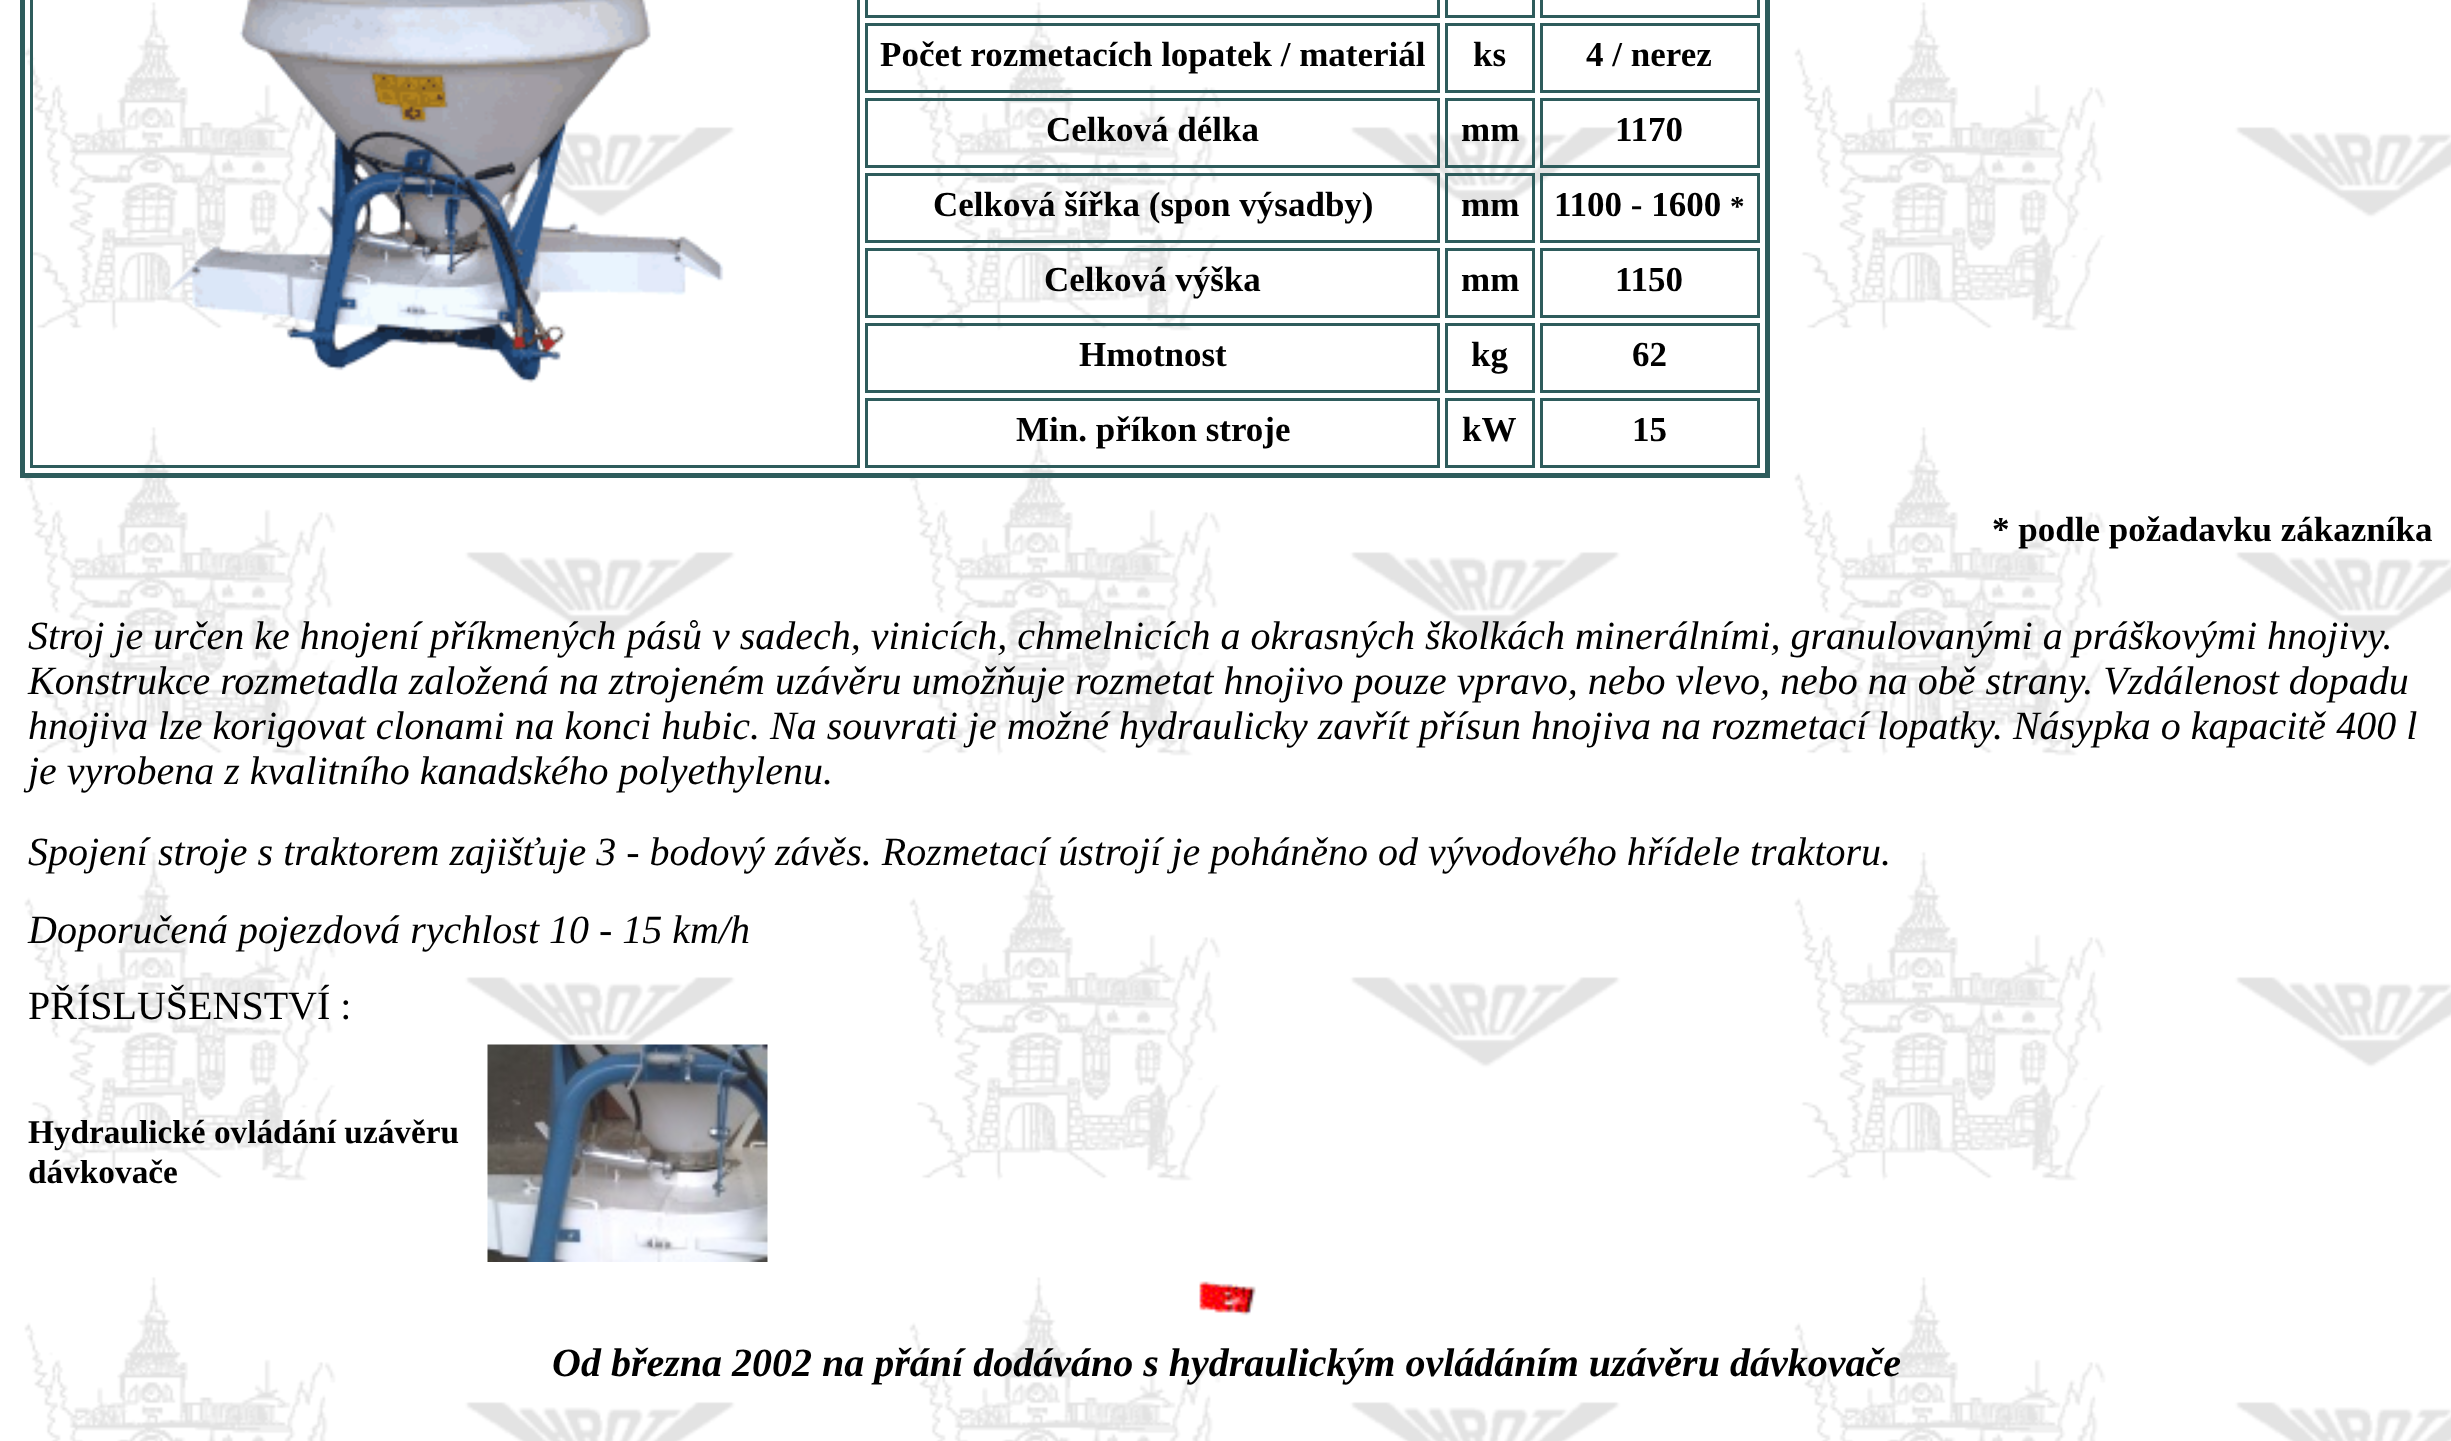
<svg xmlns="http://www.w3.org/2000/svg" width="2451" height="1441">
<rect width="100%" height="100%" fill="#fff"/>
<image x="24" y="2" width="2427" height="1439" href="media/1.png"/>
<rect x="22.5" y="-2.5" width="1745" height="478" fill="none" stroke="#2e5c5c" stroke-width="5"/>
<rect x="31.5" y="-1.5" width="827" height="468" fill="none" stroke="#2e5c5c" stroke-width="3"/>
<image x="165" y="0" width="559" height="383" href="media/2.png"/>
<rect x="866.5" y="-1.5" width="572" height="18" fill="none" stroke="#2e5c5c" stroke-width="3"/>
<rect x="1446.5" y="-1.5" width="87" height="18" fill="none" stroke="#2e5c5c" stroke-width="3"/>
<rect x="1541.5" y="-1.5" width="217" height="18" fill="none" stroke="#2e5c5c" stroke-width="3"/>
<rect x="866.5" y="24.5" width="572" height="67" fill="none" stroke="#2e5c5c" stroke-width="3"/>
<text x="880" y="66" style="font-family:Liberation Serif;font-size:35px;font-weight:bold;fill:#000">Počet rozmetacích lopatek / materiál</text>
<rect x="1446.5" y="24.5" width="87" height="67" fill="none" stroke="#2e5c5c" stroke-width="3"/>
<text x="1473" y="66" style="font-family:Liberation Serif;font-size:35px;font-weight:bold;fill:#000">ks</text>
<rect x="1541.5" y="24.5" width="217" height="67" fill="none" stroke="#2e5c5c" stroke-width="3"/>
<text x="1586" y="66" style="font-family:Liberation Serif;font-size:35px;font-weight:bold;fill:#000">4 / nerez</text>
<rect x="866.5" y="99.5" width="572" height="67" fill="none" stroke="#2e5c5c" stroke-width="3"/>
<text x="1046" y="141" style="font-family:Liberation Serif;font-size:35px;font-weight:bold;fill:#000">Celková délka</text>
<rect x="1446.5" y="99.5" width="87" height="67" fill="none" stroke="#2e5c5c" stroke-width="3"/>
<text x="1461" y="141" style="font-family:Liberation Serif;font-size:35px;font-weight:bold;fill:#000">mm</text>
<rect x="1541.5" y="99.5" width="217" height="67" fill="none" stroke="#2e5c5c" stroke-width="3"/>
<text x="1615" y="141" style="font-family:Liberation Serif;font-size:35px;font-weight:bold;fill:#000">1170</text>
<rect x="866.5" y="174.5" width="572" height="67" fill="none" stroke="#2e5c5c" stroke-width="3"/>
<text x="933" y="216" style="font-family:Liberation Serif;font-size:35px;font-weight:bold;fill:#000">Celková šířka (spon výsadby)</text>
<rect x="1446.5" y="174.5" width="87" height="67" fill="none" stroke="#2e5c5c" stroke-width="3"/>
<text x="1461" y="216" style="font-family:Liberation Serif;font-size:35px;font-weight:bold;fill:#000">mm</text>
<rect x="1541.5" y="174.5" width="217" height="67" fill="none" stroke="#2e5c5c" stroke-width="3"/>
<text x="1554" y="216" style="font-family:Liberation Serif;font-size:35px;font-weight:bold;fill:#000">1100 - 1600</text>
<text x="1730" y="216" style="font-family:Liberation Serif;font-size:29px;font-weight:bold;fill:#000">*</text>
<rect x="866.5" y="249.5" width="572" height="67" fill="none" stroke="#2e5c5c" stroke-width="3"/>
<text x="1044" y="291" style="font-family:Liberation Serif;font-size:35px;font-weight:bold;fill:#000">Celková výška</text>
<rect x="1446.5" y="249.5" width="87" height="67" fill="none" stroke="#2e5c5c" stroke-width="3"/>
<text x="1461" y="291" style="font-family:Liberation Serif;font-size:35px;font-weight:bold;fill:#000">mm</text>
<rect x="1541.5" y="249.5" width="217" height="67" fill="none" stroke="#2e5c5c" stroke-width="3"/>
<text x="1615" y="291" style="font-family:Liberation Serif;font-size:35px;font-weight:bold;fill:#000">1150</text>
<rect x="866.5" y="324.5" width="572" height="67" fill="none" stroke="#2e5c5c" stroke-width="3"/>
<text x="1079" y="366" style="font-family:Liberation Serif;font-size:35px;font-weight:bold;fill:#000">Hmotnost</text>
<rect x="1446.5" y="324.5" width="87" height="67" fill="none" stroke="#2e5c5c" stroke-width="3"/>
<text x="1471" y="366" style="font-family:Liberation Serif;font-size:35px;font-weight:bold;fill:#000">kg</text>
<rect x="1541.5" y="324.5" width="217" height="67" fill="none" stroke="#2e5c5c" stroke-width="3"/>
<text x="1632" y="366" style="font-family:Liberation Serif;font-size:35px;font-weight:bold;fill:#000">62</text>
<rect x="866.5" y="399.5" width="572" height="67" fill="none" stroke="#2e5c5c" stroke-width="3"/>
<text x="1016" y="441" style="font-family:Liberation Serif;font-size:35px;font-weight:bold;fill:#000">Min. příkon stroje</text>
<rect x="1446.5" y="399.5" width="87" height="67" fill="none" stroke="#2e5c5c" stroke-width="3"/>
<text x="1462" y="441" style="font-family:Liberation Serif;font-size:35px;font-weight:bold;fill:#000">kW</text>
<rect x="1541.5" y="399.5" width="217" height="67" fill="none" stroke="#2e5c5c" stroke-width="3"/>
<text x="1632" y="441" style="font-family:Liberation Serif;font-size:35px;font-weight:bold;fill:#000">15</text>
<text x="1992" y="541" style="font-family:Liberation Serif;font-size:35px;font-weight:bold;fill:#000">* podle požadavku zákazníka</text>
<text x="28" y="649" style="font-family:Liberation Serif;font-size:40px;font-style:italic;fill:#000">Stroj je určen ke hnojení příkmených pásů v sadech, vinicích, chmelnicích a okrasných školkách minerálními, granulovanými a práškovými hnojivy.</text>
<text x="28" y="694" style="font-family:Liberation Serif;font-size:40px;font-style:italic;fill:#000">Konstrukce rozmetadla založená na ztrojeném uzávěru umožňuje rozmetat hnojivo pouze vpravo, nebo vlevo, nebo na obě strany. Vzdálenost dopadu</text>
<text x="28" y="739" style="font-family:Liberation Serif;font-size:40px;font-style:italic;fill:#000">hnojiva lze korigovat clonami na konci hubic. Na souvrati je možné hydraulicky zavřít přísun hnojiva na rozmetací lopatky. Násypka o kapacitě 400 l</text>
<text x="28" y="784" style="font-family:Liberation Serif;font-size:40px;font-style:italic;fill:#000">je vyrobena z kvalitního kanadského polyethylenu.</text>
<text x="28" y="865" style="font-family:Liberation Serif;font-size:40px;font-style:italic;fill:#000">Spojení stroje s traktorem zajišťuje 3 - bodový závěs. Rozmetací ústrojí je poháněno od vývodového hřídele traktoru.</text>
<text x="28" y="943" style="font-family:Liberation Serif;font-size:40px;font-style:italic;fill:#000">Doporučená pojezdová rychlost 10 - 15 km/h</text>
<text x="28" y="1019" style="font-family:Liberation Serif;font-size:40px;fill:#000">PŘÍSLUŠENSTVÍ :</text>
<text x="28" y="1143" style="font-family:Liberation Serif;font-size:33.3px;font-weight:bold;fill:#000">Hydraulické ovládání uzávěru</text>
<text x="28" y="1183" style="font-family:Liberation Serif;font-size:33.3px;font-weight:bold;fill:#000">dávkovače</text>
<image x="487" y="1044" width="281" height="218" href="media/3.png"/>
<image x="1199" y="1281" width="57" height="35" href="media/4.png"/>
<text x="552" y="1376" style="font-family:Liberation Serif;font-size:40px;font-weight:bold;font-style:italic;fill:#000">Od března 2002 na přání dodáváno s hydraulickým ovládáním uzávěru dávkovače</text>
</svg>
